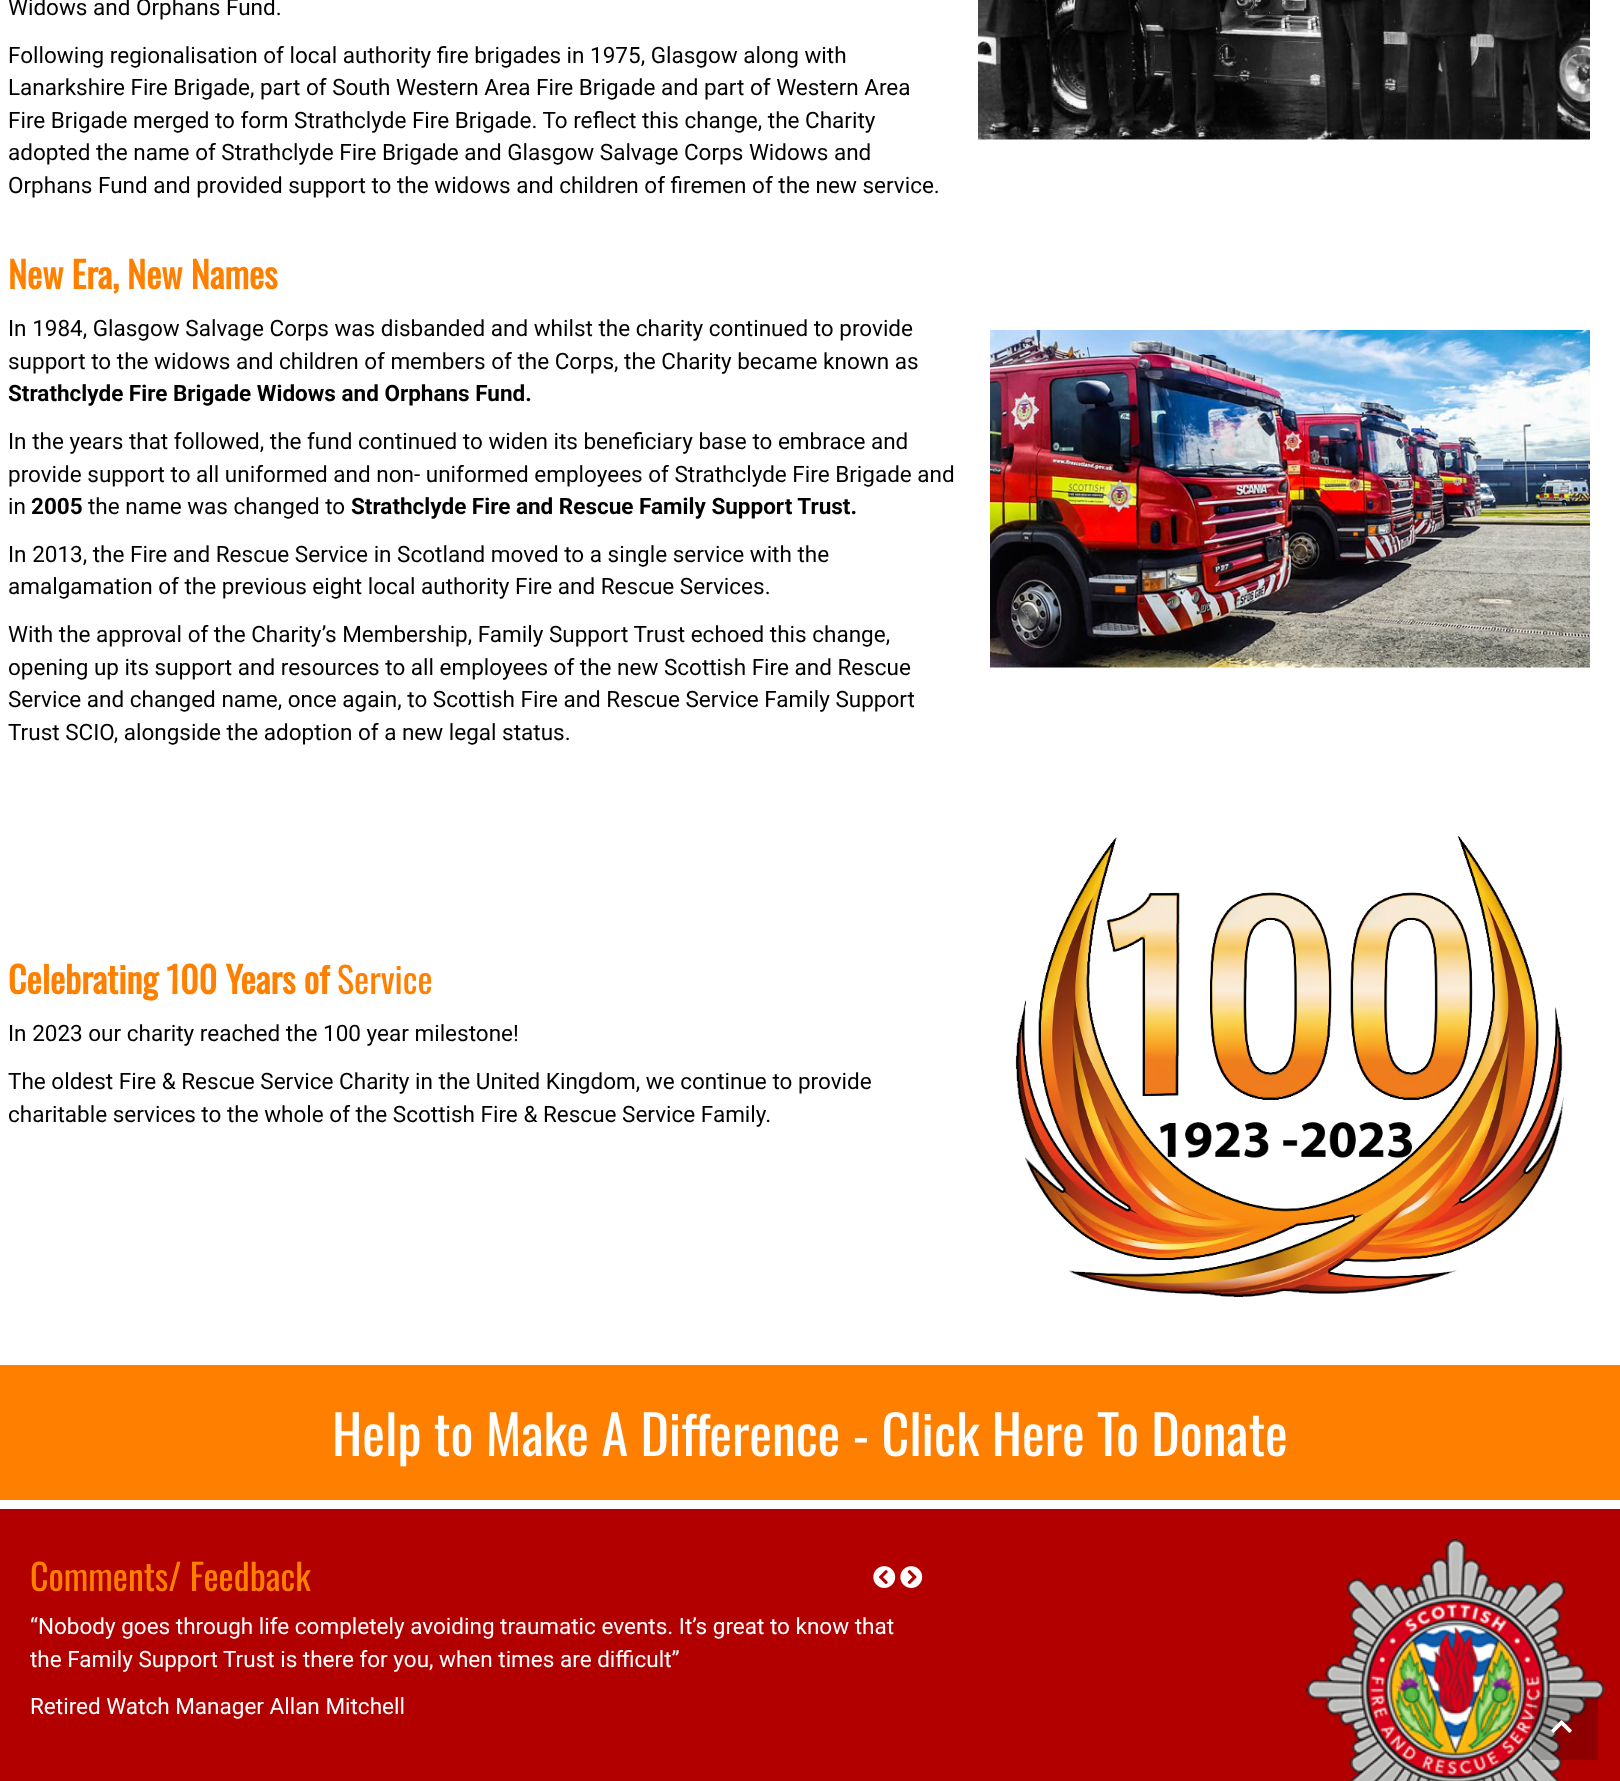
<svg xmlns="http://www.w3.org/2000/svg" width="1620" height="1781">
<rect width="100%" height="100%" fill="#fff"/>
<text x="8" y="15" style="font-family:Roboto;font-size:22.5px;fill:#000">Widows and Orphans Fund.</text>
<text x="8" y="63" style="font-family:Roboto;font-size:22.5px;fill:#000">Following regionalisation of local authority fire brigades in 1975, Glasgow along with</text>
<text x="8" y="95" style="font-family:Roboto;font-size:22.5px;fill:#000">Lanarkshire Fire Brigade, part of South Western Area Fire Brigade and part of Western Area</text>
<text x="8" y="128" style="font-family:Roboto;font-size:22.5px;fill:#000">Fire Brigade merged to form Strathclyde Fire Brigade. To reflect this change, the Charity</text>
<text x="8" y="160" style="font-family:Roboto;font-size:22.5px;fill:#000">adopted the name of Strathclyde Fire Brigade and Glasgow Salvage Corps Widows and</text>
<text x="8" y="193" style="font-family:Roboto;font-size:22.5px;fill:#000">Orphans Fund and provided support to the widows and children of firemen of the new service.</text>
<image x="978" y="0" width="612" height="140" href="media/1.png"/>
<text x="8" y="289" style="font-family:Oswald;font-size:36px;font-weight:bold;fill:#ff8000">New Era, New Names</text>
<text x="8" y="336" style="font-family:Roboto;font-size:22.5px;fill:#000">In 1984, Glasgow Salvage Corps was disbanded and whilst the charity continued to provide</text>
<text x="8" y="369" style="font-family:Roboto;font-size:22.5px;fill:#000">support to the widows and children of members of the Corps, the Charity became known as</text>
<text x="8" y="401" style="font-family:Roboto;font-size:22.5px;font-weight:bold;fill:#000">Strathclyde Fire Brigade Widows and Orphans Fund.</text>
<text x="8" y="449" style="font-family:Roboto;font-size:22.5px;fill:#000">In the years that followed, the fund continued to widen its beneficiary base to embrace and</text>
<text x="8" y="482" style="font-family:Roboto;font-size:22.5px;fill:#000">provide support to all uniformed and non- uniformed employees of Strathclyde Fire Brigade and</text>
<text x="8" y="514" style="font-family:Roboto;font-size:22.5px;fill:#000">in</text>
<text x="31" y="514" style="font-family:Roboto;font-size:22.5px;font-weight:bold;fill:#000">2005</text>
<text x="88" y="514" style="font-family:Roboto;font-size:22.5px;fill:#000">the name was changed to</text>
<text x="351" y="514" style="font-family:Roboto;font-size:22.5px;font-weight:bold;fill:#000">Strathclyde Fire and Rescue Family Support Trust.</text>
<text x="8" y="562" style="font-family:Roboto;font-size:22.5px;fill:#000">In 2013, the Fire and Rescue Service in Scotland moved to a single service with the</text>
<text x="8" y="594" style="font-family:Roboto;font-size:22.5px;fill:#000">amalgamation of the previous eight local authority Fire and Rescue Services.</text>
<text x="8" y="642" style="font-family:Roboto;font-size:22.5px;fill:#000">With the approval of the Charity’s Membership, Family Support Trust echoed this change,</text>
<text x="8" y="675" style="font-family:Roboto;font-size:22.5px;fill:#000">opening up its support and resources to all employees of the new Scottish Fire and Rescue</text>
<text x="8" y="707" style="font-family:Roboto;font-size:22.5px;fill:#000">Service and changed name, once again, to Scottish Fire and Rescue Service Family Support</text>
<text x="8" y="740" style="font-family:Roboto;font-size:22.5px;fill:#000">Trust SCIO, alongside the adoption of a new legal status.</text>
<image x="990" y="330" width="600" height="338" href="media/2.png"/>
<text x="8" y="994" style="font-family:Oswald;font-size:36px;font-weight:bold;fill:#ff8000">Celebrating 100 Years of</text>
<text x="337" y="994" style="font-family:Oswald;font-size:36px;fill:#ff8000">Service</text>
<text x="8" y="1041" style="font-family:Roboto;font-size:22.5px;fill:#000">In 2023 our charity reached the 100 year milestone!</text>
<text x="8" y="1089" style="font-family:Roboto;font-size:22.5px;fill:#000">The oldest Fire &amp; Rescue Service Charity in the United Kingdom, we continue to provide</text>
<text x="8" y="1122" style="font-family:Roboto;font-size:22.5px;fill:#000">charitable services to the whole of the Scottish Fire &amp; Rescue Service Family.</text>
<image x="1015" y="836" width="549" height="462" href="media/3.png"/>
<rect y="1365" width="1620" height="135" fill="#ff8000"/>
<text x="332" y="1456" style="font-family:Oswald;font-size:54px;fill:#fff">Help to Make A Difference - Click Here To Donate</text>
<rect y="1509" width="1620" height="272" fill="#b20000"/>
<text x="30" y="1591" style="font-family:Oswald;font-size:36px;fill:#ff8000">Comments/ Feedback</text>
<image x="873" y="1566" width="23" height="22" href="media/4.png"/>
<image x="900" y="1566" width="23" height="22" href="media/5.png"/>
<text x="30" y="1634" style="font-family:Roboto;font-size:22.5px;fill:#fff">“Nobody goes through life completely avoiding traumatic events. It’s great to know that</text>
<text x="30" y="1667" style="font-family:Roboto;font-size:22.5px;fill:#fff">the Family Support Trust is there for you, when times are difficult”</text>
<text x="30" y="1714" style="font-family:Roboto;font-size:22.5px;fill:#fff">Retired Watch Manager Allan Mitchell</text>
<image x="1306" y="1539" width="299" height="242" href="media/6.png"/>
<rect x="1532" y="1697" width="66" height="63" fill="#00000033"/>
<image x="1551" y="1720" width="21" height="13" href="media/7.png"/>
</svg>
